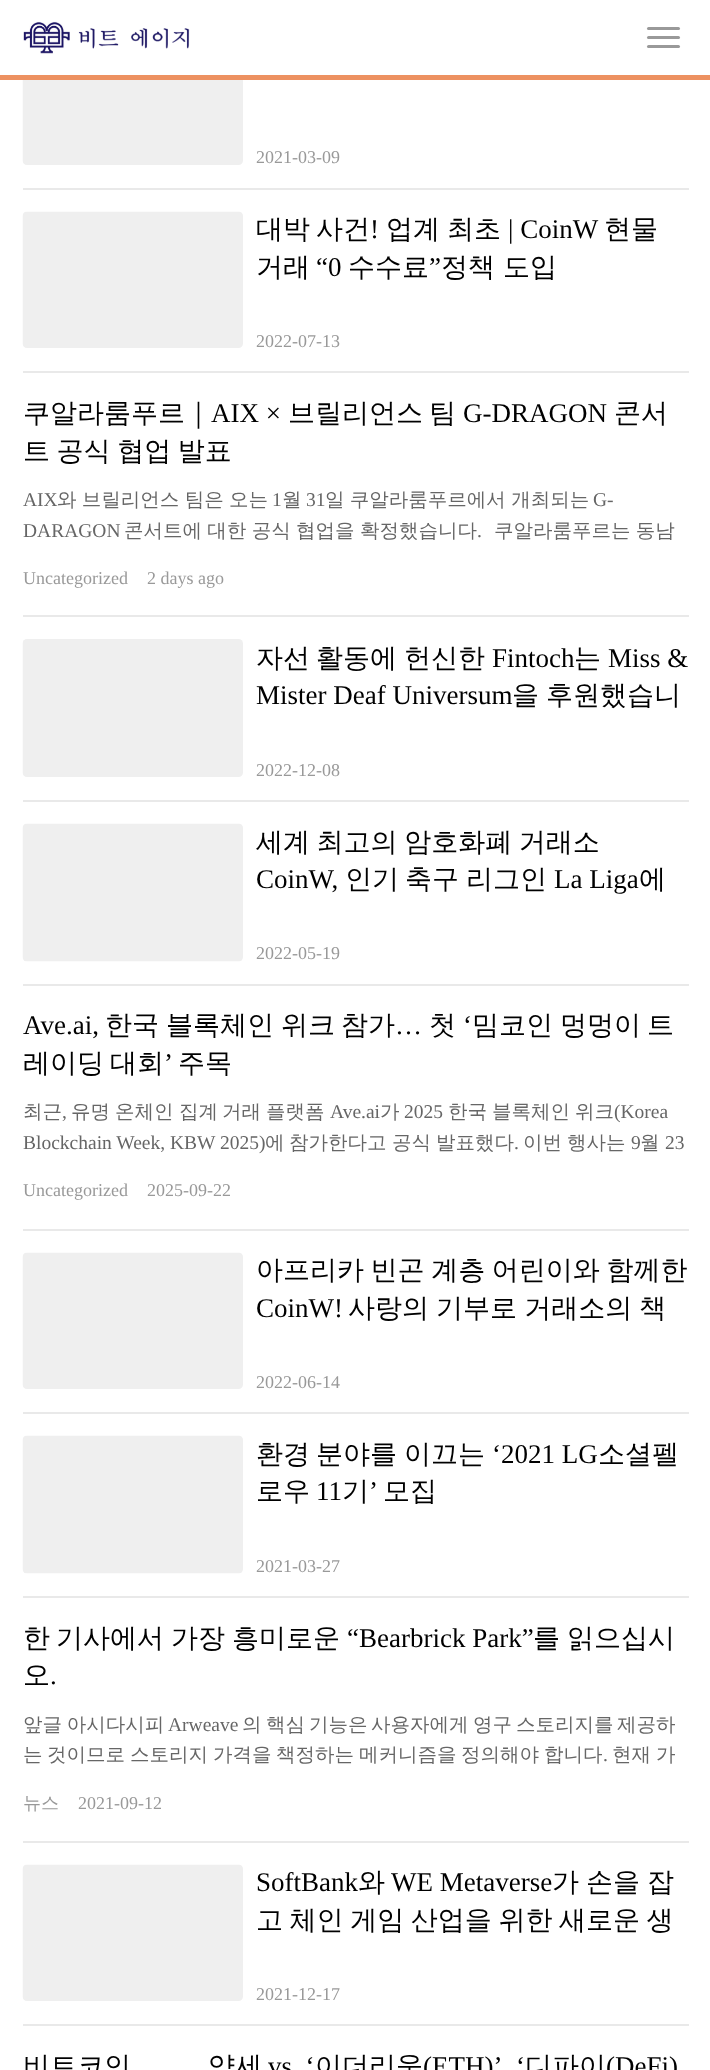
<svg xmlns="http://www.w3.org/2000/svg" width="710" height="2070">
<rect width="100%" height="100%" fill="#fff"/>
<rect y="75" width="710" height="5" fill="#ed9161"/>
<image x="23" y="21" width="167" height="33" href="media/1.png"/>
<rect x="647" y="27" width="33" height="3" rx="1.5" fill="#999"/>
<rect x="647" y="36" width="33" height="3" rx="1.5" fill="#999"/>
<rect x="647" y="45" width="33" height="3" rx="1.5" fill="#999"/>
<rect x="23" y="188" width="666" height="2" fill="#e9e9e9"/>
<image x="22" y="80" width="221" height="85" href="media/2.png"/>
<text x="256" y="163" style="font-family:Liberation Serif;font-size:18px;fill:#999">2021-03-09</text>
<rect x="23" y="371" width="666" height="2" fill="#e9e9e9"/>
<image x="22" y="211" width="221" height="137" href="media/3.png"/>
<text x="256" y="238" style="font-family:WenQuanYi Zen Hei;font-size:27px;font-weight:500;fill:#000">대박</text>
<text x="316" y="238" style="font-family:WenQuanYi Zen Hei;font-size:27px;font-weight:500;fill:#000">사건</text>
<text x="370" y="238" style="font-family:Liberation Serif;font-size:27px;fill:#000">!</text>
<text x="386" y="238" style="font-family:WenQuanYi Zen Hei;font-size:27px;font-weight:500;fill:#000">업계</text>
<text x="447" y="238" style="font-family:WenQuanYi Zen Hei;font-size:27px;font-weight:500;fill:#000">최초</text>
<text x="508" y="238" style="font-family:Liberation Serif;font-size:27px;fill:#000">| CoinW</text>
<text x="604" y="238" style="font-family:WenQuanYi Zen Hei;font-size:27px;font-weight:500;fill:#000">현물</text>
<text x="256" y="276" style="font-family:WenQuanYi Zen Hei;font-size:27px;font-weight:500;fill:#000">거래</text>
<text x="316" y="276" style="font-family:Liberation Serif;font-size:27px;fill:#000">“0</text>
<text x="348" y="276" style="font-family:WenQuanYi Zen Hei;font-size:27px;font-weight:500;fill:#000">수수료</text>
<text x="429" y="276" style="font-family:Liberation Serif;font-size:27px;fill:#000">”</text>
<text x="441" y="276" style="font-family:WenQuanYi Zen Hei;font-size:27px;font-weight:500;fill:#000">정책 도입</text>
<text x="256" y="347" style="font-family:Liberation Serif;font-size:18px;fill:#999">2022-07-13</text>
<rect x="23" y="615" width="666" height="2" fill="#e9e9e9"/>
<text x="23" y="422" style="font-family:WenQuanYi Zen Hei;font-size:27px;font-weight:500;fill:#000">쿠알라룸푸르｜</text>
<text x="211" y="422" style="font-family:Liberation Serif;font-size:27px;fill:#000">AIX ×</text>
<text x="288" y="422" style="font-family:WenQuanYi Zen Hei;font-size:27px;font-weight:500;fill:#000">브릴리언스</text>
<text x="429" y="422" style="font-family:WenQuanYi Zen Hei;font-size:27px;font-weight:500;fill:#000">팀</text>
<text x="463" y="422" style="font-family:Liberation Serif;font-size:27px;fill:#000">G-DRAGON</text>
<text x="614" y="422" style="font-family:WenQuanYi Zen Hei;font-size:27px;font-weight:500;fill:#000">콘서</text>
<text x="23" y="460" word-spacing="-1.5" style="font-family:WenQuanYi Zen Hei;font-size:27px;font-weight:500;fill:#000">트 공식 협업 발표</text>
<text x="23" y="506" style="font-family:Liberation Serif;font-size:19.5px;fill:#666">AIX</text>
<text x="57" y="506" word-spacing="-0.5" style="font-family:WenQuanYi Zen Hei;font-size:19.5px;font-weight:500;fill:#666">와 브릴리언스 팀은 오는</text>
<text x="272" y="506" style="font-family:Liberation Serif;font-size:19.5px;fill:#666">1</text>
<text x="282" y="506" style="font-family:WenQuanYi Zen Hei;font-size:19.5px;font-weight:500;fill:#666">월</text>
<text x="306" y="506" style="font-family:Liberation Serif;font-size:19.5px;fill:#666">31</text>
<text x="325" y="506" word-spacing="-0.5" style="font-family:WenQuanYi Zen Hei;font-size:19.5px;font-weight:500;fill:#666">일 쿠알라룸푸르에서 개최되는</text>
<text x="593" y="506" style="font-family:Liberation Serif;font-size:19.5px;fill:#666">G-</text>
<text x="23" y="537" style="font-family:Liberation Serif;font-size:19.5px;fill:#666">DARAGON</text>
<text x="124" y="537" word-spacing="-0.5" style="font-family:WenQuanYi Zen Hei;font-size:19.5px;font-weight:500;fill:#666">콘서트에 대한 공식 협업을 확정했습니다</text>
<text x="477" y="537" style="font-family:Liberation Serif;font-size:19.5px;fill:#666">.</text>
<text x="494" y="537" word-spacing="-0.5" style="font-family:WenQuanYi Zen Hei;font-size:19.5px;font-weight:500;fill:#666">쿠알라룸푸르는 동남</text>
<text x="23" y="584" style="font-family:Liberation Serif;font-size:18px;fill:#999">Uncategorized</text>
<text x="147" y="584" style="font-family:Liberation Serif;font-size:18px;fill:#999">2 days ago</text>
<rect x="23" y="800" width="666" height="2" fill="#e9e9e9"/>
<image x="22" y="639" width="221" height="138" href="media/4.png"/>
<text x="256" y="667" style="font-family:WenQuanYi Zen Hei;font-size:27px;font-weight:500;fill:#000">자선</text>
<text x="316" y="667" style="font-family:WenQuanYi Zen Hei;font-size:27px;font-weight:500;fill:#000">활동에</text>
<text x="404" y="667" style="font-family:WenQuanYi Zen Hei;font-size:27px;font-weight:500;fill:#000">헌신한</text>
<text x="492" y="667" style="font-family:Liberation Serif;font-size:27px;fill:#000">Fintoch</text>
<text x="574" y="667" style="font-family:WenQuanYi Zen Hei;font-size:27px;font-weight:500;fill:#000">는</text>
<text x="608" y="667" style="font-family:Liberation Serif;font-size:27px;fill:#000">Miss &amp;</text>
<text x="256" y="704" style="font-family:Liberation Serif;font-size:27px;fill:#000">Mister Deaf Universum</text>
<text x="512" y="704" style="font-family:WenQuanYi Zen Hei;font-size:27px;font-weight:500;fill:#000">을</text>
<text x="546" y="704" style="font-family:WenQuanYi Zen Hei;font-size:27px;font-weight:500;fill:#000">후원했습니</text>
<text x="256" y="776" style="font-family:Liberation Serif;font-size:18px;fill:#999">2022-12-08</text>
<rect x="23" y="984" width="666" height="2" fill="#e9e9e9"/>
<image x="22" y="823" width="221" height="139" href="media/5.png"/>
<text x="256" y="851" word-spacing="-1.5" style="font-family:WenQuanYi Zen Hei;font-size:27px;font-weight:500;fill:#000">세계 최고의 암호화폐 거래소</text>
<text x="256" y="888" style="font-family:Liberation Serif;font-size:27px;fill:#000">CoinW,</text>
<text x="345" y="888" style="font-family:WenQuanYi Zen Hei;font-size:27px;font-weight:500;fill:#000">인기</text>
<text x="405" y="888" style="font-family:WenQuanYi Zen Hei;font-size:27px;font-weight:500;fill:#000">축구</text>
<text x="466" y="888" style="font-family:WenQuanYi Zen Hei;font-size:27px;font-weight:500;fill:#000">리그인</text>
<text x="554" y="888" style="font-family:Liberation Serif;font-size:27px;fill:#000">La Liga</text>
<text x="639" y="888" style="font-family:WenQuanYi Zen Hei;font-size:27px;font-weight:500;fill:#000">에</text>
<text x="256" y="959" style="font-family:Liberation Serif;font-size:18px;fill:#999">2022-05-19</text>
<rect x="23" y="1229" width="666" height="2" fill="#e9e9e9"/>
<text x="23" y="1034" style="font-family:Liberation Serif;font-size:27px;fill:#000">Ave.ai,</text>
<text x="105" y="1034" style="font-family:WenQuanYi Zen Hei;font-size:27px;font-weight:500;fill:#000">한국</text>
<text x="166" y="1034" style="font-family:WenQuanYi Zen Hei;font-size:27px;font-weight:500;fill:#000">블록체인</text>
<text x="281" y="1034" style="font-family:WenQuanYi Zen Hei;font-size:27px;font-weight:500;fill:#000">위크</text>
<text x="341" y="1034" style="font-family:WenQuanYi Zen Hei;font-size:27px;font-weight:500;fill:#000">참가</text>
<text x="395" y="1034" style="font-family:Liberation Serif;font-size:27px;fill:#000">…</text>
<text x="429" y="1034" style="font-family:WenQuanYi Zen Hei;font-size:27px;font-weight:500;fill:#000">첫</text>
<text x="463" y="1034" style="font-family:Liberation Serif;font-size:27px;fill:#000">‘</text>
<text x="472" y="1034" style="font-family:WenQuanYi Zen Hei;font-size:27px;font-weight:500;fill:#000">밈코인</text>
<text x="560" y="1034" style="font-family:WenQuanYi Zen Hei;font-size:27px;font-weight:500;fill:#000">멍멍이</text>
<text x="647" y="1034" style="font-family:WenQuanYi Zen Hei;font-size:27px;font-weight:500;fill:#000">트</text>
<text x="23" y="1072" style="font-family:WenQuanYi Zen Hei;font-size:27px;font-weight:500;fill:#000">레이딩</text>
<text x="110" y="1072" style="font-family:WenQuanYi Zen Hei;font-size:27px;font-weight:500;fill:#000">대회</text>
<text x="164" y="1072" style="font-family:Liberation Serif;font-size:27px;fill:#000">’</text>
<text x="178" y="1072" style="font-family:WenQuanYi Zen Hei;font-size:27px;font-weight:500;fill:#000">주목</text>
<text x="23" y="1118" style="font-family:WenQuanYi Zen Hei;font-size:19.5px;font-weight:500;fill:#666">최근</text>
<text x="62" y="1118" style="font-family:Liberation Serif;font-size:19.5px;fill:#666">,</text>
<text x="71" y="1118" style="font-family:WenQuanYi Zen Hei;font-size:19.5px;font-weight:500;fill:#666">유명</text>
<text x="115" y="1118" style="font-family:WenQuanYi Zen Hei;font-size:19.5px;font-weight:500;fill:#666">온체인</text>
<text x="179" y="1118" style="font-family:WenQuanYi Zen Hei;font-size:19.5px;font-weight:500;fill:#666">집계</text>
<text x="222" y="1118" style="font-family:WenQuanYi Zen Hei;font-size:19.5px;font-weight:500;fill:#666">거래</text>
<text x="266" y="1118" style="font-family:WenQuanYi Zen Hei;font-size:19.5px;font-weight:500;fill:#666">플랫폼</text>
<text x="330" y="1118" style="font-family:Liberation Serif;font-size:19.5px;fill:#666">Ave.ai</text>
<text x="380" y="1118" style="font-family:WenQuanYi Zen Hei;font-size:19.5px;font-weight:500;fill:#666">가</text>
<text x="404" y="1118" style="font-family:Liberation Serif;font-size:19.5px;fill:#666">2025</text>
<text x="448" y="1118" style="font-family:WenQuanYi Zen Hei;font-size:19.5px;font-weight:500;fill:#666">한국</text>
<text x="492" y="1118" style="font-family:WenQuanYi Zen Hei;font-size:19.5px;font-weight:500;fill:#666">블록체인</text>
<text x="575" y="1118" style="font-family:WenQuanYi Zen Hei;font-size:19.5px;font-weight:500;fill:#666">위크</text>
<text x="614" y="1118" style="font-family:Liberation Serif;font-size:19.5px;fill:#666">(Korea</text>
<text x="23" y="1149" style="font-family:Liberation Serif;font-size:19.5px;fill:#666">Blockchain Week, KBW 2025)</text>
<text x="265" y="1149" style="font-family:WenQuanYi Zen Hei;font-size:19.5px;font-weight:500;fill:#666">에</text>
<text x="289" y="1149" style="font-family:WenQuanYi Zen Hei;font-size:19.5px;font-weight:500;fill:#666">참가한다고</text>
<text x="392" y="1149" style="font-family:WenQuanYi Zen Hei;font-size:19.5px;font-weight:500;fill:#666">공식</text>
<text x="436" y="1149" style="font-family:WenQuanYi Zen Hei;font-size:19.5px;font-weight:500;fill:#666">발표했다</text>
<text x="514" y="1149" style="font-family:Liberation Serif;font-size:19.5px;fill:#666">.</text>
<text x="523" y="1149" style="font-family:WenQuanYi Zen Hei;font-size:19.5px;font-weight:500;fill:#666">이번</text>
<text x="567" y="1149" style="font-family:WenQuanYi Zen Hei;font-size:19.5px;font-weight:500;fill:#666">행사는</text>
<text x="631" y="1149" style="font-family:Liberation Serif;font-size:19.5px;fill:#666">9</text>
<text x="640" y="1149" style="font-family:WenQuanYi Zen Hei;font-size:19.5px;font-weight:500;fill:#666">월</text>
<text x="665" y="1149" style="font-family:Liberation Serif;font-size:19.5px;fill:#666">23</text>
<text x="23" y="1196" style="font-family:Liberation Serif;font-size:18px;fill:#999">Uncategorized</text>
<text x="147" y="1196" style="font-family:Liberation Serif;font-size:18px;fill:#999">2025-09-22</text>
<rect x="23" y="1412" width="666" height="2" fill="#e9e9e9"/>
<image x="22" y="1252" width="221" height="137" href="media/3.png"/>
<text x="256" y="1279" word-spacing="-1.5" style="font-family:WenQuanYi Zen Hei;font-size:27px;font-weight:500;fill:#000">아프리카 빈곤 계층 어린이와 함께한</text>
<text x="256" y="1317" style="font-family:Liberation Serif;font-size:27px;fill:#000">CoinW!</text>
<text x="348" y="1317" word-spacing="-1" style="font-family:WenQuanYi Zen Hei;font-size:27px;font-weight:500;fill:#000">사랑의 기부로 거래소의 책</text>
<text x="256" y="1388" style="font-family:Liberation Serif;font-size:18px;fill:#999">2022-06-14</text>
<rect x="23" y="1596" width="666" height="2" fill="#e9e9e9"/>
<image x="22" y="1435" width="221" height="139" href="media/5.png"/>
<text x="256" y="1463" style="font-family:WenQuanYi Zen Hei;font-size:27px;font-weight:500;fill:#000">환경</text>
<text x="316" y="1463" style="font-family:WenQuanYi Zen Hei;font-size:27px;font-weight:500;fill:#000">분야를</text>
<text x="404" y="1463" style="font-family:WenQuanYi Zen Hei;font-size:27px;font-weight:500;fill:#000">이끄는</text>
<text x="492" y="1463" style="font-family:Liberation Serif;font-size:27px;fill:#000">‘2021 LG</text>
<text x="598" y="1463" style="font-family:WenQuanYi Zen Hei;font-size:27px;font-weight:500;fill:#000">소셜펠</text>
<text x="256" y="1500" style="font-family:WenQuanYi Zen Hei;font-size:27px;font-weight:500;fill:#000">로우</text>
<text x="316" y="1500" style="font-family:Liberation Serif;font-size:27px;fill:#000">11</text>
<text x="342" y="1500" style="font-family:WenQuanYi Zen Hei;font-size:27px;font-weight:500;fill:#000">기</text>
<text x="369" y="1500" style="font-family:Liberation Serif;font-size:27px;fill:#000">’</text>
<text x="383" y="1500" style="font-family:WenQuanYi Zen Hei;font-size:27px;font-weight:500;fill:#000">모집</text>
<text x="256" y="1572" style="font-family:Liberation Serif;font-size:18px;fill:#999">2021-03-27</text>
<rect x="23" y="1841" width="666" height="2" fill="#e9e9e9"/>
<text x="23" y="1647" style="font-family:WenQuanYi Zen Hei;font-size:27px;font-weight:500;fill:#000">한</text>
<text x="56" y="1647" style="font-family:WenQuanYi Zen Hei;font-size:27px;font-weight:500;fill:#000">기사에서</text>
<text x="171" y="1647" style="font-family:WenQuanYi Zen Hei;font-size:27px;font-weight:500;fill:#000">가장</text>
<text x="232" y="1647" style="font-family:WenQuanYi Zen Hei;font-size:27px;font-weight:500;fill:#000">흥미로운</text>
<text x="347" y="1647" style="font-family:Liberation Serif;font-size:27px;fill:#000">“Bearbrick Park”</text>
<text x="533" y="1647" style="font-family:WenQuanYi Zen Hei;font-size:27px;font-weight:500;fill:#000">를</text>
<text x="567" y="1647" style="font-family:WenQuanYi Zen Hei;font-size:27px;font-weight:500;fill:#000">읽으십시</text>
<text x="23" y="1684" style="font-family:WenQuanYi Zen Hei;font-size:27px;font-weight:500;fill:#000">오</text>
<text x="50" y="1684" style="font-family:Liberation Serif;font-size:27px;fill:#000">.</text>
<text x="23" y="1731" word-spacing="-1" style="font-family:WenQuanYi Zen Hei;font-size:19.5px;font-weight:500;fill:#666">앞글 아시다시피</text>
<text x="168" y="1731" style="font-family:Liberation Serif;font-size:19.5px;fill:#666">Arweave</text>
<text x="242" y="1731" style="font-family:WenQuanYi Zen Hei;font-size:19.5px;font-weight:500;fill:#666">의</text>
<text x="266" y="1731" style="font-family:WenQuanYi Zen Hei;font-size:19.5px;font-weight:500;fill:#666">핵심</text>
<text x="309" y="1731" style="font-family:WenQuanYi Zen Hei;font-size:19.5px;font-weight:500;fill:#666">기능은</text>
<text x="371" y="1731" style="font-family:WenQuanYi Zen Hei;font-size:19.5px;font-weight:500;fill:#666">사용자에게</text>
<text x="473" y="1731" style="font-family:WenQuanYi Zen Hei;font-size:19.5px;font-weight:500;fill:#666">영구</text>
<text x="516" y="1731" style="font-family:WenQuanYi Zen Hei;font-size:19.5px;font-weight:500;fill:#666">스토리지를</text>
<text x="617" y="1731" style="font-family:WenQuanYi Zen Hei;font-size:19.5px;font-weight:500;fill:#666">제공하</text>
<text x="23" y="1761" style="font-family:WenQuanYi Zen Hei;font-size:19.5px;font-weight:500;fill:#666">는</text>
<text x="47" y="1761" style="font-family:WenQuanYi Zen Hei;font-size:19.5px;font-weight:500;fill:#666">것이므로</text>
<text x="130" y="1761" style="font-family:WenQuanYi Zen Hei;font-size:19.5px;font-weight:500;fill:#666">스토리지</text>
<text x="213" y="1761" style="font-family:WenQuanYi Zen Hei;font-size:19.5px;font-weight:500;fill:#666">가격을</text>
<text x="276" y="1761" style="font-family:WenQuanYi Zen Hei;font-size:19.5px;font-weight:500;fill:#666">책정하는</text>
<text x="359" y="1761" style="font-family:WenQuanYi Zen Hei;font-size:19.5px;font-weight:500;fill:#666">메커니즘을</text>
<text x="461" y="1761" style="font-family:WenQuanYi Zen Hei;font-size:19.5px;font-weight:500;fill:#666">정의해야</text>
<text x="544" y="1761" style="font-family:WenQuanYi Zen Hei;font-size:19.5px;font-weight:500;fill:#666">합니다</text>
<text x="603" y="1761" style="font-family:Liberation Serif;font-size:19.5px;fill:#666">.</text>
<text x="612" y="1761" style="font-family:WenQuanYi Zen Hei;font-size:19.5px;font-weight:500;fill:#666">현재</text>
<text x="656" y="1761" style="font-family:WenQuanYi Zen Hei;font-size:19.5px;font-weight:500;fill:#666">가</text>
<text x="23" y="1809" style="font-family:WenQuanYi Zen Hei;font-size:18px;font-weight:500;fill:#999">뉴스</text>
<text x="78" y="1809" style="font-family:Liberation Serif;font-size:18px;fill:#999">2021-09-12</text>
<rect x="23" y="2024" width="666" height="2" fill="#e9e9e9"/>
<image x="22" y="1864" width="221" height="137" href="media/3.png"/>
<text x="256" y="1891" style="font-family:Liberation Serif;font-size:27px;fill:#000">SoftBank</text>
<text x="358" y="1891" style="font-family:WenQuanYi Zen Hei;font-size:27px;font-weight:500;fill:#000">와</text>
<text x="391" y="1891" style="font-family:Liberation Serif;font-size:27px;fill:#000">WE Metaverse</text>
<text x="552" y="1891" style="font-family:WenQuanYi Zen Hei;font-size:27px;font-weight:500;fill:#000">가</text>
<text x="586" y="1891" style="font-family:WenQuanYi Zen Hei;font-size:27px;font-weight:500;fill:#000">손을</text>
<text x="647" y="1891" style="font-family:WenQuanYi Zen Hei;font-size:27px;font-weight:500;fill:#000">잡</text>
<text x="256" y="1929" word-spacing="-1.5" style="font-family:WenQuanYi Zen Hei;font-size:27px;font-weight:500;fill:#000">고 체인 게임 산업을 위한 새로운 생</text>
<text x="256" y="2000" style="font-family:Liberation Serif;font-size:18px;fill:#999">2021-12-17</text>
<text x="23" y="2075" style="font-family:WenQuanYi Zen Hei;font-size:27px;font-weight:500;fill:#000">비트코인</text>
<text x="208" y="2075" style="font-family:WenQuanYi Zen Hei;font-size:27px;font-weight:500;fill:#000">약세</text>
<text x="268" y="2075" style="font-family:Liberation Serif;font-size:27px;fill:#000">vs. ‘</text>
<text x="315" y="2075" style="font-family:WenQuanYi Zen Hei;font-size:27px;font-weight:500;fill:#000">이더리움</text>
<text x="423" y="2075" style="font-family:Liberation Serif;font-size:27px;fill:#000">(ETH)’, ‘</text>
<text x="525" y="2075" style="font-family:WenQuanYi Zen Hei;font-size:27px;font-weight:500;fill:#000">디파이</text>
<text x="606" y="2075" style="font-family:Liberation Serif;font-size:27px;fill:#000">(DeFi)</text>
</svg>
